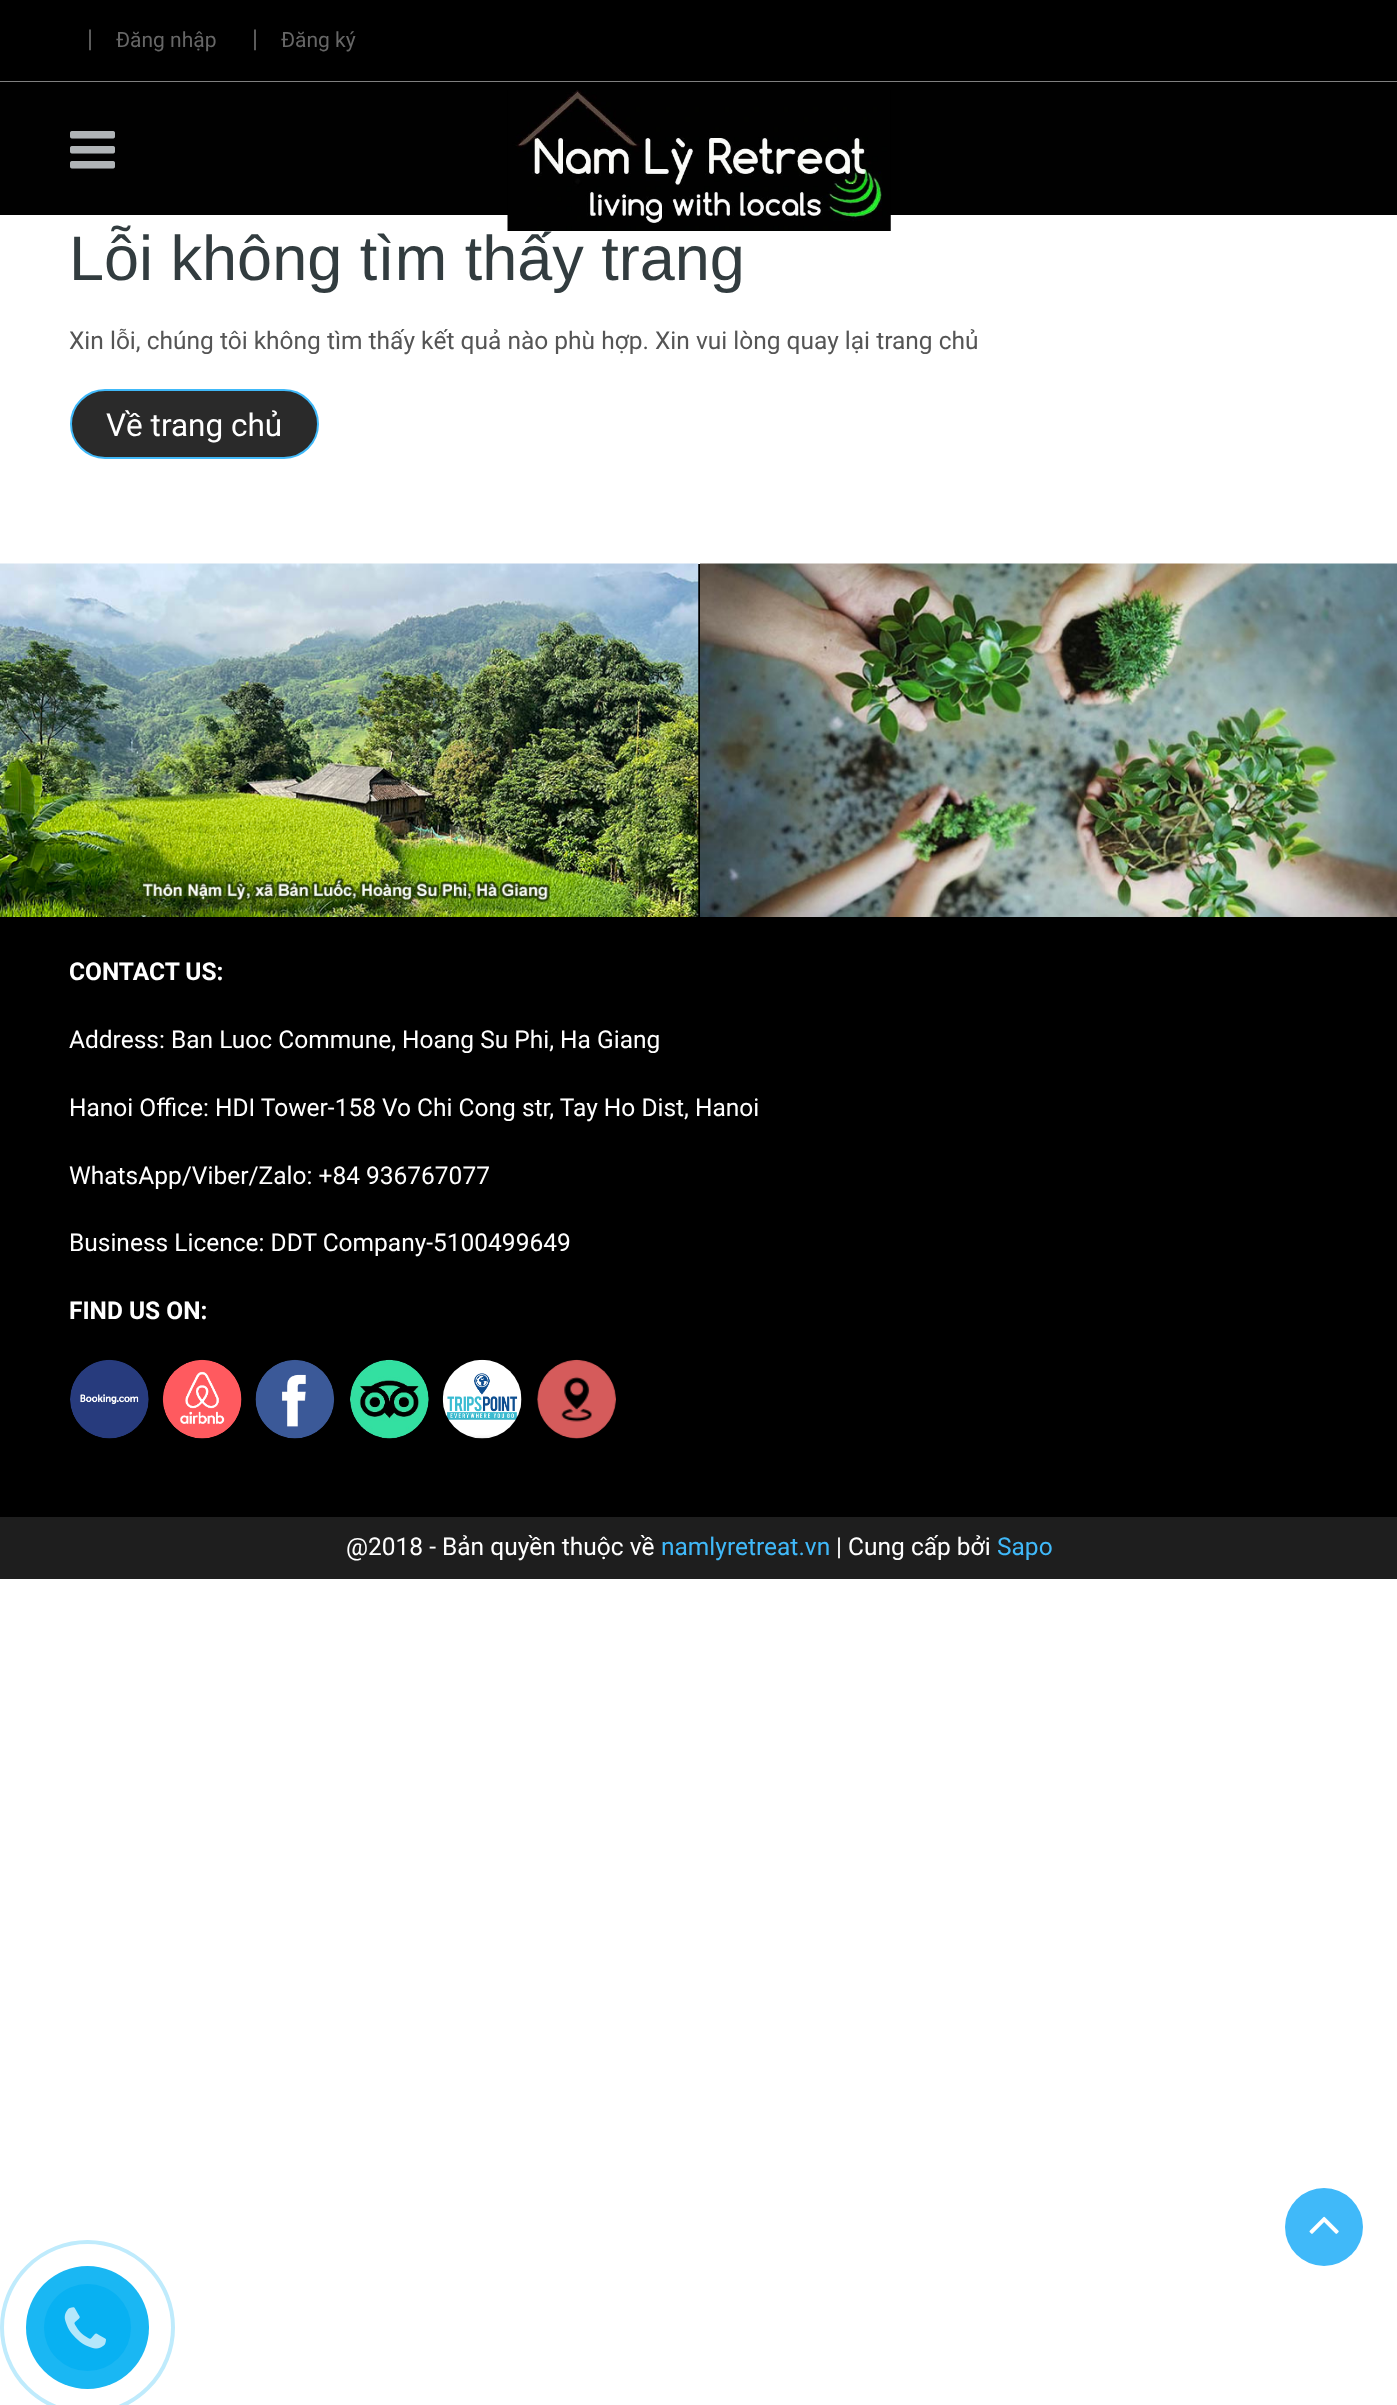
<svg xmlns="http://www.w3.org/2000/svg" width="1397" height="2405">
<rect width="100%" height="100%" fill="#fff"/>
<rect width="1397" height="81" fill="#000"/>
<rect y="81" width="1397" height="1" fill="#808080"/>
<text x="87" y="47" style="font-family:Roboto;font-size:24.5px;fill:#666">|</text>
<text x="116" y="47" style="font-family:Roboto;font-size:21px;fill:#666">Đăng nhập</text>
<text x="252" y="47" style="font-family:Roboto;font-size:24.5px;fill:#666">|</text>
<text x="281" y="47" style="font-family:Roboto;font-size:21px;fill:#666">Đăng ký</text>
<rect y="82" width="1397" height="133" fill="#010101"/>
<image x="70" y="131" width="45" height="38" href="media/1.png"/>
<text x="69" y="280" style="font-family:Liberation Sans;font-size:63px;fill:#323c3f">Lỗi không tìm thấy trang</text>
<image x="507" y="90" width="384" height="141" href="media/2.png"/>
<text x="69" y="349" style="font-family:Roboto;font-size:24.5px;fill:#555">Xin lỗi, chúng tôi không tìm thấy kết quả nào phù hợp. Xin vui lòng quay lại trang chủ</text>
<rect x="71" y="390" width="247" height="68" rx="34" fill="#2a2a2a" stroke="#40b9f9" stroke-width="2"/>
<text x="106" y="436" style="font-family:Roboto;font-size:31.5px;fill:#fff">Về trang chủ</text>
<rect y="564" width="1397" height="953" fill="#000"/>
<image x="0" y="563" width="699" height="354" href="media/3.png"/>
<image x="700" y="563" width="697" height="354" href="media/4.png"/>
<text x="69" y="980" style="font-family:Roboto;font-size:24.5px;font-weight:bold;fill:#fff">CONTACT US:</text>
<text x="69" y="1048" style="font-family:Roboto;font-size:24.5px;fill:#fff">Address: Ban Luoc Commune, Hoang Su Phi, Ha Giang</text>
<text x="69" y="1116" style="font-family:Roboto;font-size:24.5px;fill:#fff">Hanoi Office: HDI Tower-158 Vo Chi Cong str, Tay Ho Dist, Hanoi</text>
<text x="69" y="1184" style="font-family:Roboto;font-size:24.5px;fill:#fff">WhatsApp/Viber/Zalo: +84 936767077</text>
<text x="69" y="1251" style="font-family:Roboto;font-size:24.5px;fill:#fff">Business Licence: DDT Company-5100499649</text>
<text x="69" y="1319" style="font-family:Roboto;font-size:24.5px;font-weight:bold;fill:#fff">FIND US ON:</text>
<image x="70" y="1359" width="79" height="80" href="media/5.png"/>
<image x="162" y="1359" width="80" height="80" href="media/6.png"/>
<image x="255" y="1359" width="80" height="80" href="media/7.png"/>
<image x="350" y="1359" width="79" height="80" href="media/8.png"/>
<image x="442" y="1359" width="80" height="80" href="media/9.png"/>
<image x="537" y="1359" width="79" height="80" href="media/10.png"/>
<rect y="1517" width="1397" height="62" fill="#1e1e1e"/>
<text x="346" y="1555" style="font-family:Roboto;font-size:24.5px;fill:#fff">@2018 - Bản quyền thuộc về</text>
<text x="661" y="1555" style="font-family:Roboto;font-size:24.5px;fill:#40b9f9">namlyretreat.vn</text>
<text x="836" y="1555" style="font-family:Roboto;font-size:24.5px;fill:#fff">| Cung cấp bởi</text>
<text x="997" y="1555" style="font-family:Roboto;font-size:24.5px;fill:#40b9f9">Sapo</text>
<circle cx="1324" cy="2227" r="39" fill="#40b9f9"/>
<image x="1309" y="2216" width="30" height="18" href="media/11.png"/>
<circle cx="87.5" cy="2327.5" r="85.5" fill="none" stroke="#bfebfc" stroke-width="4"/>
<circle cx="87.5" cy="2327.5" r="61.5" fill="#1ab7f3"/>
<circle cx="87.5" cy="2327.5" r="43.5" fill="#08b1f2"/>
<image x="64" y="2307" width="42" height="42" href="media/12.png"/>
</svg>
